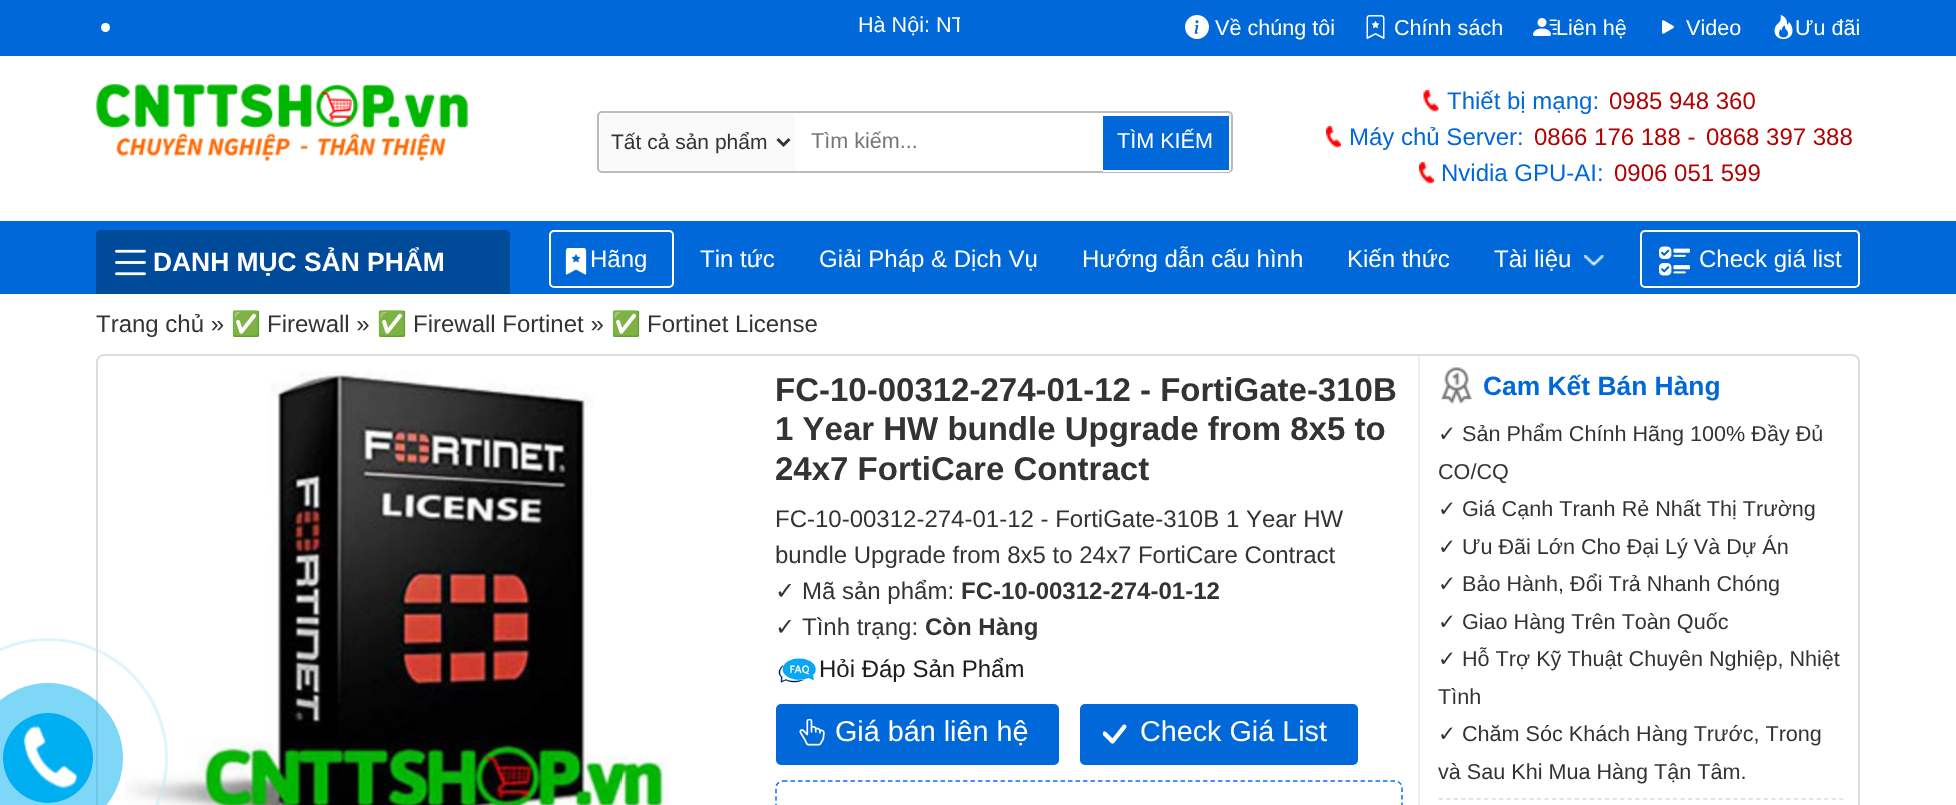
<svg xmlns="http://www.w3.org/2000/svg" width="1956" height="805">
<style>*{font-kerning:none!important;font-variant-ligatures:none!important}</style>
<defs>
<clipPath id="clip1"><rect x="134" y="9" width="826" height="33"/></clipPath>
</defs>
<rect width="100%" height="100%" fill="#fff"/>
<rect width="1956" height="56" fill="#0068d9"/>
<circle cx="105.5" cy="27.5" r="4.5" fill="#fff"/>
<g clip-path="url(#clip1)">
<text x="858" y="32" style="font-family:Liberation Sans;font-size:21.6px;fill:#fff">Hà Nội: NT</text>
</g>
<image x="1185" y="15" width="24" height="24" href="media/1.png"/>
<text x="1215" y="35" style="font-family:Liberation Sans;font-size:21.6px;fill:#fff">Về chúng tôi</text>
<image x="1366" y="15" width="19" height="24" href="media/2.png"/>
<text x="1394" y="35" style="font-family:Liberation Sans;font-size:21.6px;fill:#fff">Chính sách</text>
<image x="1533" y="18" width="24" height="18" href="media/3.png"/>
<text x="1556" y="35" style="font-family:Liberation Sans;font-size:21.6px;fill:#fff">Liên hệ</text>
<image x="1662" y="20" width="12" height="14" href="media/4.png"/>
<text x="1686" y="35" style="font-family:Liberation Sans;font-size:21.6px;fill:#fff">Video</text>
<image x="1774" y="15" width="19" height="24" href="media/5.png"/>
<text x="1795" y="35" style="font-family:Liberation Sans;font-size:21.6px;fill:#fff">Ưu đãi</text>
<image x="96" y="84" width="372" height="77" href="media/6.png"/>
<rect x="598" y="112" width="634" height="60" rx="4" fill="none" stroke="#bbb" stroke-width="2"/>
<path d="M603 114h192v56h-192c-1.5 0-3-1.5-3-3v-50c0-1.5 1.5-3 3-3z" fill="#fafafa"/>
<path d="M777.5 139l6 6l6-6" fill="none" stroke="#333" stroke-width="3"/>
<text x="611" y="149" style="font-family:Liberation Sans;font-size:21px;fill:#333">Tất cả sản phẩm</text>
<text x="811" y="148" style="font-family:Liberation Sans;font-size:21.6px;fill:#757575">Tìm kiếm...</text>
<path d="M1103 114h124c1.5 0 3 1.5 3 3v51c0 1.5-1.5 3-3 3h-124z" fill="#0068d9"/>
<rect x="1103" y="114" width="126" height="2" fill="#fff"/>
<rect x="1229" y="116" width="2" height="54" fill="#fff"/>
<rect x="1103" y="170" width="126" height="2" fill="#fff"/>
<text x="1117" y="148" style="font-family:Liberation Sans;font-size:21.6px;fill:#fff">TÌM KIẾM</text>
<image x="1423" y="90" width="16" height="22" href="media/7.png"/>
<text x="1447" y="109" style="font-family:Liberation Sans;font-size:24px;fill:#0068d9">Thiết bị mạng:</text>
<text x="1609" y="109" style="font-family:Liberation Sans;font-size:24px;fill:#b30000">0985 948 360</text>
<image x="1326" y="126" width="15" height="22" href="media/8.png"/>
<text x="1349" y="145" style="font-family:Liberation Sans;font-size:24px;fill:#0068d9">Máy chủ Server:</text>
<text x="1534" y="145" style="font-family:Liberation Sans;font-size:24px;fill:#b30000">0866 176 188 -</text>
<text x="1706" y="145" style="font-family:Liberation Sans;font-size:24px;fill:#b30000">0868 397 388</text>
<image x="1419" y="162" width="15" height="22" href="media/9.png"/>
<text x="1441" y="181" style="font-family:Liberation Sans;font-size:24px;fill:#0068d9">Nvidia GPU-AI:</text>
<text x="1614" y="181" style="font-family:Liberation Sans;font-size:24px;fill:#b30000">0906 051 599</text>
<rect y="221" width="1956" height="73" fill="#0068d9"/>
<path d="M101 230h404c3 0 5 2 5 5v59h-414v-59c0-3 2-5 5-5z" fill="#004a9a"/>
<image x="115" y="249" width="31" height="27" href="media/10.png"/>
<text x="153" y="271" style="font-family:Liberation Sans;font-size:26.4px;font-weight:bold;fill:#fff">DANH MỤC SẢN PHẨM</text>
<rect x="550" y="231" width="123" height="56" rx="4" fill="none" stroke="#fff" stroke-width="2"/>
<image x="565" y="248" width="22" height="27" href="media/11.png"/>
<text x="590" y="267" style="font-family:Liberation Sans;font-size:24px;fill:#fff">Hãng</text>
<text x="700" y="267" style="font-family:Liberation Sans;font-size:24px;fill:#fff">Tin tức</text>
<text x="819" y="267" style="font-family:Liberation Sans;font-size:24px;fill:#fff">Giải Pháp &amp; Dịch Vụ</text>
<text x="1082" y="267" style="font-family:Liberation Sans;font-size:24px;fill:#fff">Hướng dẫn cấu hình</text>
<text x="1347" y="267" style="font-family:Liberation Sans;font-size:24px;fill:#fff">Kiến thức</text>
<text x="1494" y="267" style="font-family:Liberation Sans;font-size:24px;fill:#fff">Tài liệu</text>
<image x="1584" y="255" width="20" height="11" href="media/12.png"/>
<rect x="1641" y="231" width="218" height="56" rx="4" fill="none" stroke="#fff" stroke-width="2"/>
<image x="1659" y="246" width="31" height="30" href="media/13.png"/>
<text x="1699" y="267" style="font-family:Liberation Sans;font-size:24px;fill:#fff">Check giá list</text>
<text x="96" y="332" style="font-family:Liberation Sans;font-size:24px;fill:#333">Trang chủ »</text>
<text x="231" y="332" style="font-family:Noto Color Emoji;font-size:24px;fill:#333">✅</text>
<text x="267" y="332" style="font-family:Liberation Sans;font-size:24px;fill:#333">Firewall »</text>
<text x="377" y="332" style="font-family:Noto Color Emoji;font-size:24px;fill:#333">✅</text>
<text x="413" y="332" style="font-family:Liberation Sans;font-size:24px;fill:#333">Firewall Fortinet »</text>
<text x="611" y="332" style="font-family:Noto Color Emoji;font-size:24px;fill:#333">✅</text>
<text x="647" y="332" style="font-family:Liberation Sans;font-size:24px;fill:#333">Fortinet License</text>
<rect x="97" y="355" width="1762" height="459" rx="7" fill="none" stroke="#ddd" stroke-width="2"/>
<image x="125" y="371" width="545" height="434" href="media/15.png"/>
<circle cx="48" cy="758" r="118.5" fill="none" stroke="#bfebfc80" stroke-width="3"/>
<circle cx="48" cy="758" r="75" fill="#00aff280"/>
<circle cx="48" cy="758" r="45" fill="#00aff2"/>
<image x="23" y="725" width="54" height="64" href="media/14.png"/>
<rect x="1418" y="356" width="2" height="449" fill="#eee"/>
<text x="775" y="401" style="font-family:Liberation Sans;font-size:33px;font-weight:bold;fill:#333">FC-10-00312-274-01-12 - FortiGate-310B</text>
<text x="775" y="440" style="font-family:Liberation Sans;font-size:33px;font-weight:bold;fill:#333">1 Year HW bundle Upgrade from 8x5 to</text>
<text x="775" y="480" style="font-family:Liberation Sans;font-size:33px;font-weight:bold;fill:#333">24x7 FortiCare Contract</text>
<text x="775" y="527" style="font-family:Liberation Sans;font-size:24px;fill:#333">FC-10-00312-274-01-12 - FortiGate-310B 1 Year HW</text>
<text x="775" y="563" style="font-family:Liberation Sans;font-size:24px;fill:#333">bundle Upgrade from 8x5 to 24x7 FortiCare Contract</text>
<text x="775" y="599" style="font-family:DejaVu Sans;font-size:24px;fill:#333">✓</text>
<text x="802" y="599" style="font-family:Liberation Sans;font-size:24px;fill:#333">Mã sản phẩm:</text>
<text x="961" y="599" style="font-family:Liberation Sans;font-size:24px;font-weight:bold;fill:#333">FC-10-00312-274-01-12</text>
<text x="775" y="635" style="font-family:DejaVu Sans;font-size:24px;fill:#333">✓</text>
<text x="802" y="635" style="font-family:Liberation Sans;font-size:24px;fill:#333">Tình trạng:</text>
<text x="925" y="635" style="font-family:Liberation Sans;font-size:24px;font-weight:bold;fill:#333">Còn Hàng</text>
<image x="778" y="658" width="38" height="25" href="media/16.png"/>
<text x="819" y="677" style="font-family:Liberation Sans;font-size:24px;fill:#1b1b1b">Hỏi Đáp Sản Phẩm</text>
<rect x="776" y="704" width="283" height="61" rx="5" fill="#0068d9"/>
<image x="799" y="719" width="26" height="27" href="media/17.png"/>
<text x="835" y="741" style="font-family:Liberation Sans;font-size:28.75px;fill:#fff">Giá bán liên hệ</text>
<rect x="1080" y="704" width="278" height="61" rx="5" fill="#0068d9"/>
<image x="1103" y="724" width="24" height="20" href="media/18.png"/>
<text x="1140" y="741" style="font-family:Liberation Sans;font-size:28.75px;fill:#fff">Check Giá List</text>
<path d="M783 781h612c3.5 0 7 3 7 6.5v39c0 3.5-3.5 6.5-7 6.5h-612c-3.5 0-7-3-7-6.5v-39c0-3.5 3.5-6.5 7-6.5z" fill="none" stroke="#0d6efd" stroke-width="1.5" stroke-dasharray="4.5 3"/>
<image x="1441" y="367" width="31" height="37" href="media/19.png"/>
<text x="1483" y="395" style="font-family:Liberation Sans;font-size:26.4px;font-weight:bold;fill:#0068d9">Cam Kết Bán Hàng</text>
<text x="1438" y="441" style="font-family:DejaVu Sans;font-size:21.6px;fill:#333">✓</text>
<text x="1462" y="441" style="font-family:Liberation Sans;font-size:21.6px;fill:#333">Sản Phẩm Chính Hãng 100% Đầy Đủ</text>
<text x="1438" y="479" style="font-family:Liberation Sans;font-size:21.6px;fill:#333">CO/CQ</text>
<text x="1438" y="516" style="font-family:DejaVu Sans;font-size:21.6px;fill:#333">✓</text>
<text x="1462" y="516" style="font-family:Liberation Sans;font-size:21.6px;fill:#333">Giá Cạnh Tranh Rẻ Nhất Thị Trường</text>
<text x="1438" y="554" style="font-family:DejaVu Sans;font-size:21.6px;fill:#333">✓</text>
<text x="1462" y="554" style="font-family:Liberation Sans;font-size:21.6px;fill:#333">Ưu Đãi Lớn Cho Đại Lý Và Dự Án</text>
<text x="1438" y="591" style="font-family:DejaVu Sans;font-size:21.6px;fill:#333">✓</text>
<text x="1462" y="591" style="font-family:Liberation Sans;font-size:21.6px;fill:#333">Bảo Hành, Đổi Trả Nhanh Chóng</text>
<text x="1438" y="629" style="font-family:DejaVu Sans;font-size:21.6px;fill:#333">✓</text>
<text x="1462" y="629" style="font-family:Liberation Sans;font-size:21.6px;fill:#333">Giao Hàng Trên Toàn Quốc</text>
<text x="1438" y="666" style="font-family:DejaVu Sans;font-size:21.6px;fill:#333">✓</text>
<text x="1462" y="666" style="font-family:Liberation Sans;font-size:21.6px;fill:#333">Hỗ Trợ Kỹ Thuật Chuyên Nghiệp, Nhiệt</text>
<text x="1438" y="704" style="font-family:Liberation Sans;font-size:21.6px;fill:#333">Tình</text>
<text x="1438" y="741" style="font-family:DejaVu Sans;font-size:21.6px;fill:#333">✓</text>
<text x="1462" y="741" style="font-family:Liberation Sans;font-size:21.6px;fill:#333">Chăm Sóc Khách Hàng Trước, Trong</text>
<text x="1438" y="779" style="font-family:Liberation Sans;font-size:21.6px;fill:#333">và Sau Khi Mua Hàng Tận Tâm.</text>
<path d="M1438.5 799h405" fill="none" stroke="#ddd" stroke-width="1.5" stroke-dasharray="4.5 3.06"/>
</svg>
